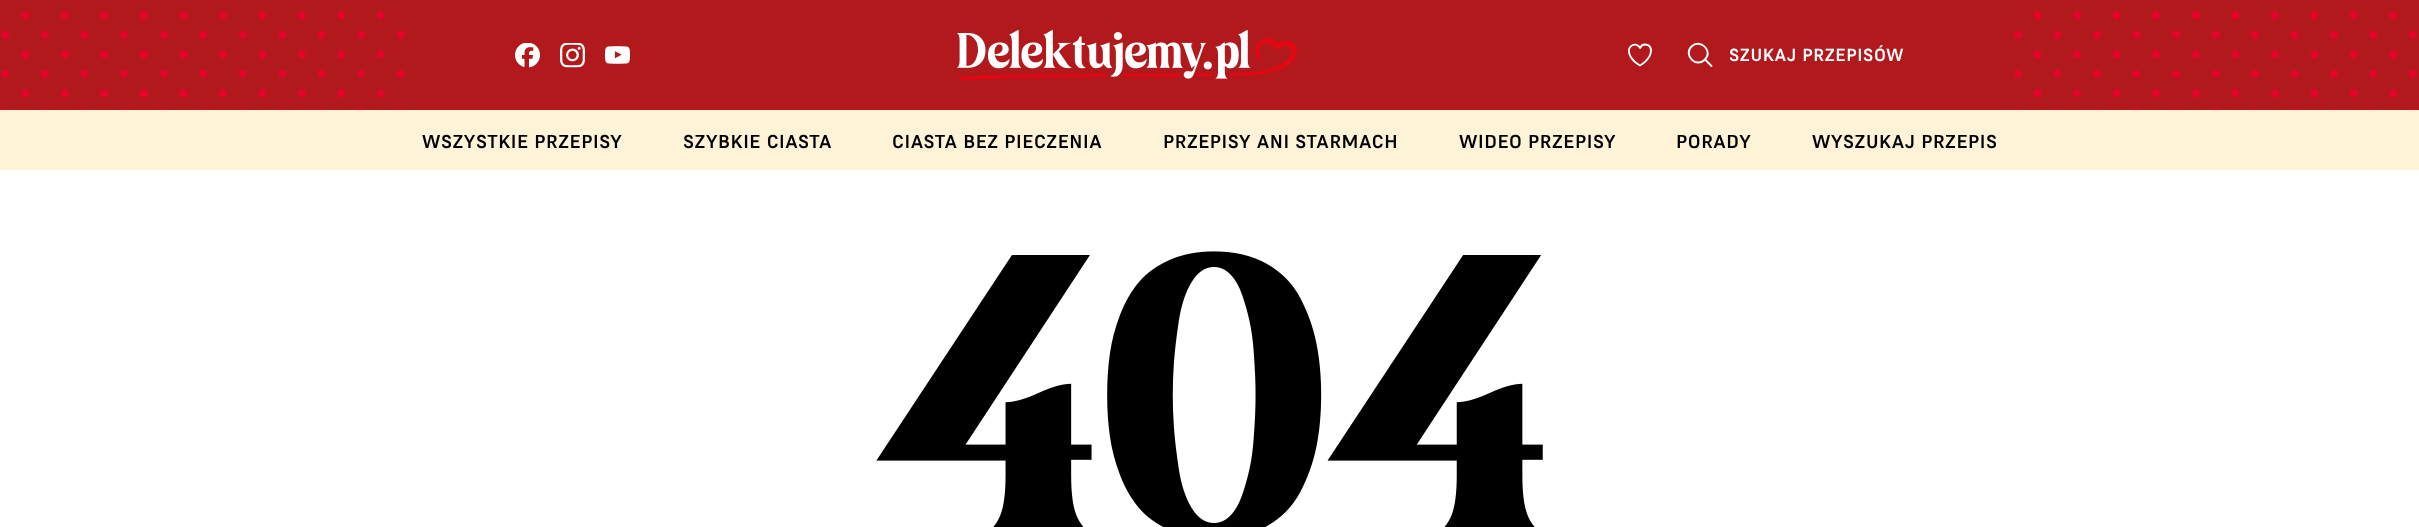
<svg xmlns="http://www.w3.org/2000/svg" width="2419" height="527">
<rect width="100%" height="100%" fill="#fff"/>
<rect y="110" width="2419" height="60" fill="#fef2d7"/>
<rect width="2419" height="110" fill="#b1191d"/>
<image x="1" y="11" width="404" height="99" href="media/1.png"/>
<image x="515" y="43" width="25" height="25" href="media/2.png"/>
<image x="560" y="43" width="25" height="25" href="media/3.png"/>
<image x="605" y="46" width="25" height="18" href="media/4.png"/>
<image x="957" y="30" width="340" height="50" href="media/5.png"/>
<path d="M1651 50.5c0-6.5-8.5-8-11-2.5c-3-7-15.5-2.5-9.5 8.5c2 3.5 6 7 9.5 9c0 0 11-6 11-15z" fill="none" stroke="#fff" stroke-width="1.9" stroke-linecap="round" stroke-linejoin="round"/>
<path d="M1711.5 66l-6.5-6.5m0 0c8.5-8.5-5-21.5-13.5-13c-8.5 8.5 4.5 22 13.5 13z" fill="none" stroke="#fff" stroke-width="1.9" stroke-linecap="round" stroke-linejoin="round"/>
<text x="1729" y="61" style="font-family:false;font-size:17.5px;font-weight:bold;letter-spacing:0.6px;fill:#fff">SZUKAJ PRZEPISÓW</text>
<image x="2014" y="11" width="403" height="99" href="media/6.png"/>
<text x="422" y="148" style="font-family:false;font-size:18.75px;font-weight:bold;letter-spacing:0.6px;fill:#000">WSZYSTKIE PRZEPISY</text>
<text x="683" y="148" style="font-family:false;font-size:18.75px;font-weight:bold;letter-spacing:0.6px;fill:#000">SZYBKIE CIASTA</text>
<text x="892" y="148" style="font-family:false;font-size:18.75px;font-weight:bold;letter-spacing:0.6px;fill:#000">CIASTA BEZ PIECZENIA</text>
<text x="1163" y="148" style="font-family:false;font-size:18.75px;font-weight:bold;letter-spacing:0.6px;fill:#000">PRZEPISY ANI STARMACH</text>
<text x="1459" y="148" style="font-family:false;font-size:18.75px;font-weight:bold;letter-spacing:0.6px;fill:#000">WIDEO PRZEPISY</text>
<text x="1676" y="148" style="font-family:false;font-size:18.75px;font-weight:bold;letter-spacing:0.6px;fill:#000">PORADY</text>
<text x="1812" y="148" style="font-family:false;font-size:18.75px;font-weight:bold;letter-spacing:0.6px;fill:#000">WYSZUKAJ PRZEPIS</text>
<image x="876" y="251" width="667" height="276" href="media/7.png"/>
</svg>
